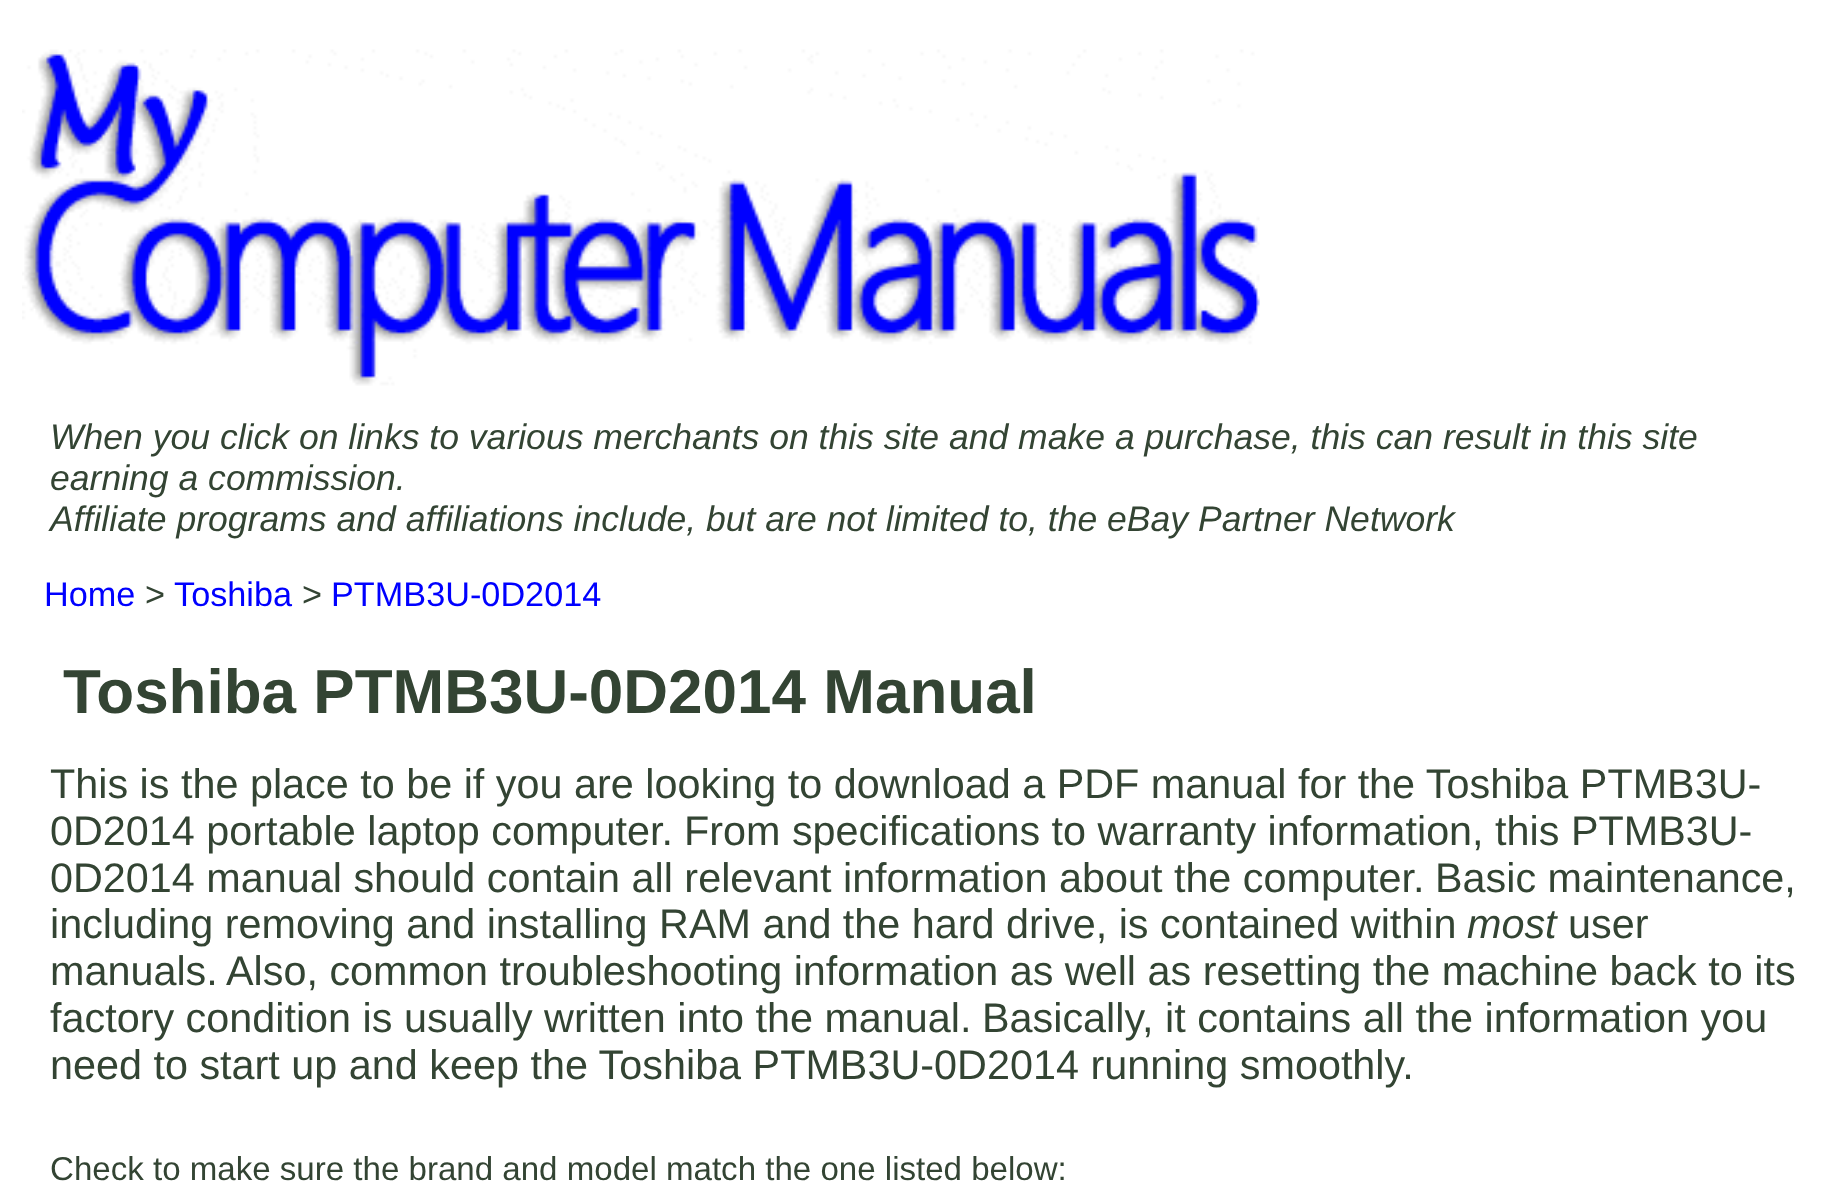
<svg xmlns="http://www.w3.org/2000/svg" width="1828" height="1197">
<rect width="100%" height="100%" fill="#fff"/>
<image x="22" y="49" width="1238" height="337" href="media/1.png"/>
<text x="50" y="449" style="font-family:Liberation Sans;font-size:35.55px;font-style:italic;fill:#343">When you click on links to various merchants on this site and make a purchase, this can result in this site</text>
<text x="50" y="490" style="font-family:Liberation Sans;font-size:35.55px;font-style:italic;fill:#343">earning a commission.</text>
<text x="50" y="531" style="font-family:Liberation Sans;font-size:35.55px;font-style:italic;fill:#343">Affiliate programs and affiliations include, but are not limited to, the eBay Partner Network</text>
<text x="44" y="606" style="font-family:Liberation Sans;font-size:34.25px;fill:#00f">Home</text>
<text x="145" y="606" style="font-family:Liberation Sans;font-size:34.25px;fill:#343">&gt;</text>
<text x="174" y="606" style="font-family:Liberation Sans;font-size:34.25px;fill:#00f">Toshiba</text>
<text x="302" y="606" style="font-family:Liberation Sans;font-size:34.25px;fill:#343">&gt;</text>
<text x="331" y="606" style="font-family:Liberation Sans;font-size:34.25px;fill:#00f">PTMB3U-0D2014</text>
<text x="63" y="713" style="font-family:Liberation Sans;font-size:62px;font-weight:bold;fill:#343">Toshiba PTMB3U-0D2014 Manual</text>
<text x="50" y="798" style="font-family:Liberation Sans;font-size:41.35px;fill:#343">This is the place to be if you are looking to download a PDF manual for the Toshiba PTMB3U-</text>
<text x="50" y="845" style="font-family:Liberation Sans;font-size:41.35px;fill:#343">0D2014 portable laptop computer.</text>
<text x="684" y="845" style="font-family:Liberation Sans;font-size:41.35px;fill:#343">From specifications to warranty information, this PTMB3U-</text>
<text x="50" y="892" style="font-family:Liberation Sans;font-size:41.35px;fill:#343">0D2014 manual should contain all relevant information about the computer.</text>
<text x="1435" y="892" style="font-family:Liberation Sans;font-size:41.35px;fill:#343">Basic maintenance,</text>
<text x="50" y="938" style="font-family:Liberation Sans;font-size:41.35px;fill:#343">including removing and installing RAM and the hard drive, is contained within</text>
<text x="1467" y="938" style="font-family:Liberation Sans;font-size:41.35px;font-style:italic;fill:#343">most</text>
<text x="1568" y="938" style="font-family:Liberation Sans;font-size:41.35px;fill:#343">user</text>
<text x="50" y="985" style="font-family:Liberation Sans;font-size:41.35px;fill:#343">manuals.</text>
<text x="226" y="985" style="font-family:Liberation Sans;font-size:41.35px;fill:#343">Also, common troubleshooting information as well as resetting the machine back to its</text>
<text x="50" y="1032" style="font-family:Liberation Sans;font-size:41.35px;fill:#343">factory condition is usually written into the manual.</text>
<text x="982" y="1032" style="font-family:Liberation Sans;font-size:41.35px;fill:#343">Basically, it contains all the information you</text>
<text x="50" y="1079" style="font-family:Liberation Sans;font-size:41.35px;fill:#343">need to start up and keep the Toshiba PTMB3U-0D2014 running smoothly.</text>
<text x="50" y="1180" style="font-family:Liberation Sans;font-size:33.1px;fill:#343">Check to make sure the brand and model match the one listed below:</text>
</svg>
